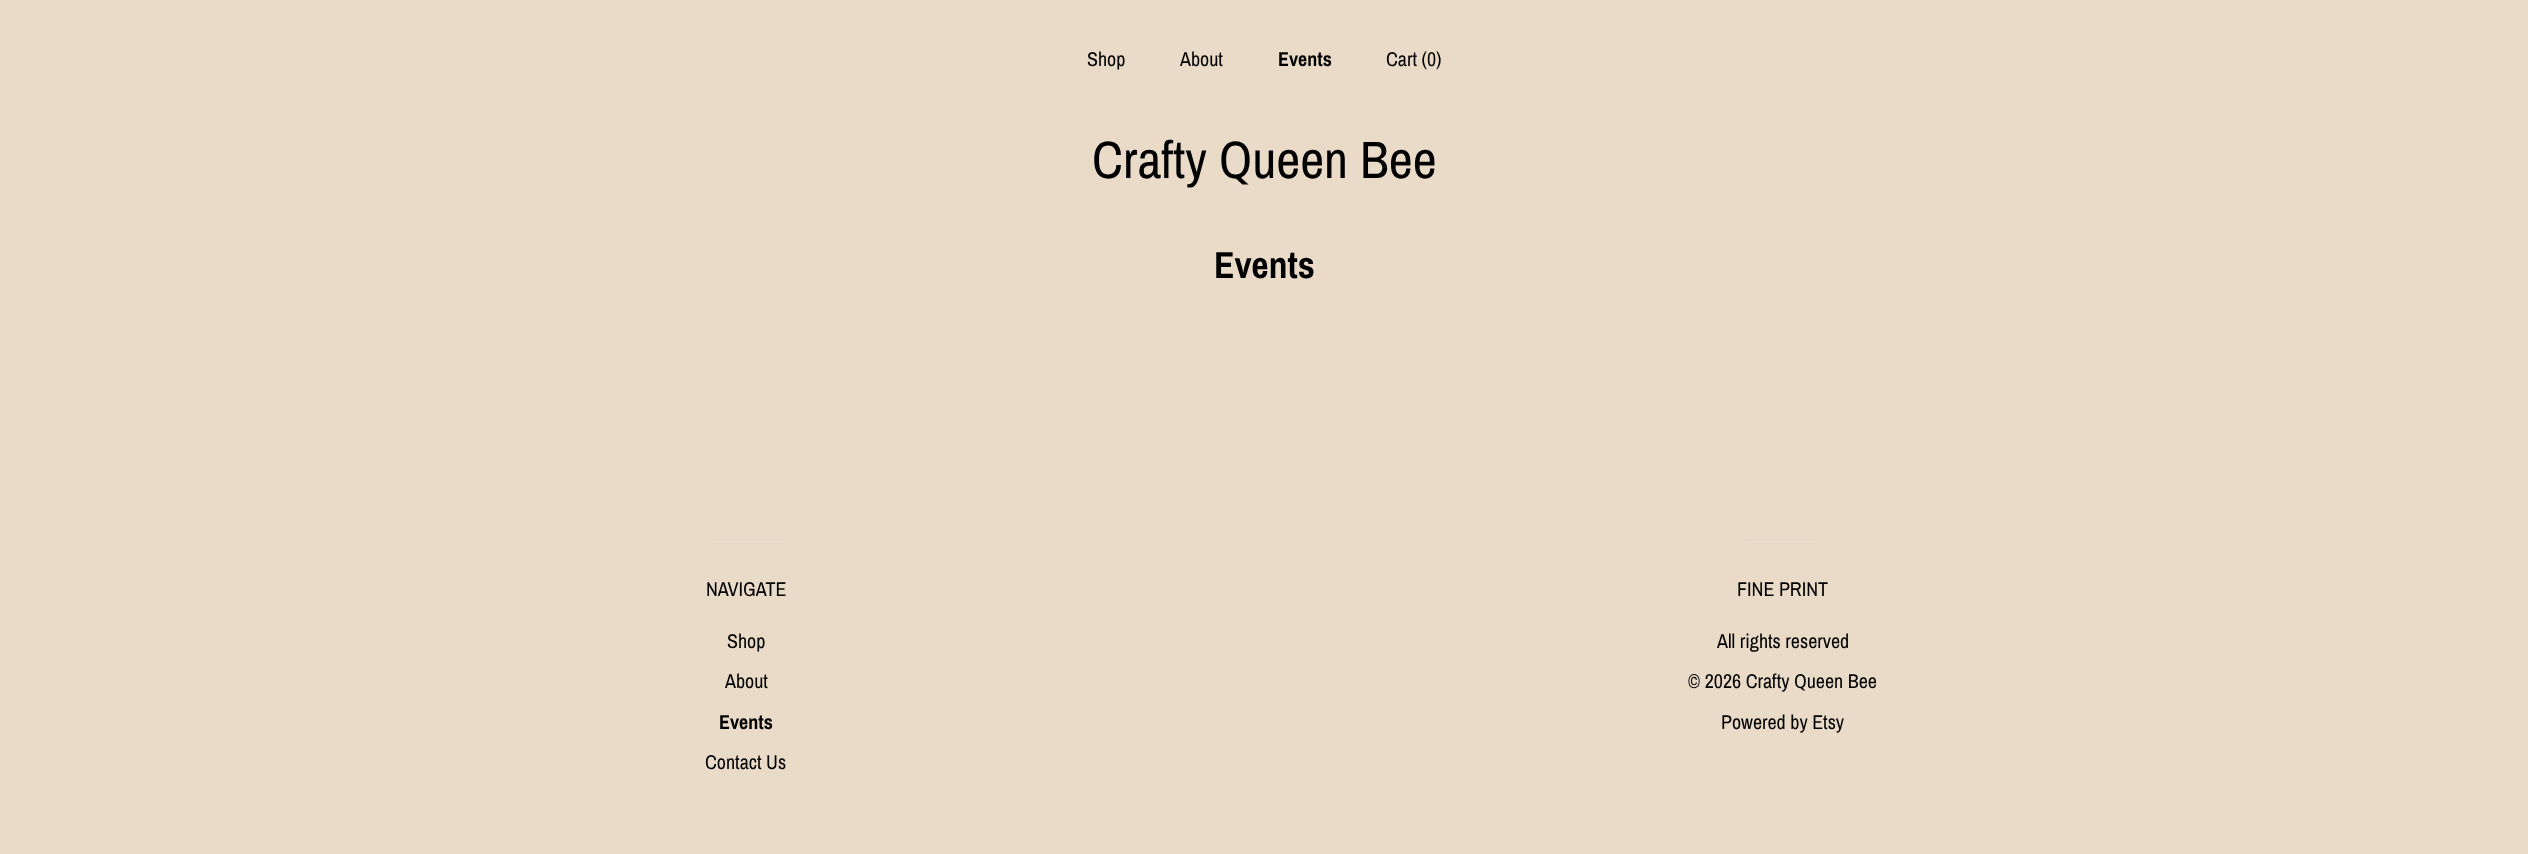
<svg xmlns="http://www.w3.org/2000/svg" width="2528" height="854">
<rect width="100%" height="100%" fill="#e9dbc7"/>
<text x="1087" y="66" style="font-family:Archivo Narrow;font-size:20px;fill:#000">Shop</text>
<text x="1180" y="66" style="font-family:Archivo Narrow;font-size:20px;fill:#000">About</text>
<text x="1278" y="66" style="font-family:Archivo Narrow;font-size:20px;font-weight:bold;fill:#000">Events</text>
<text x="1386" y="66" style="font-family:Archivo Narrow;font-size:20px;fill:#000">Cart (0)</text>
<text x="1092" y="178" style="font-family:Archivo Narrow;font-size:52.5px;fill:#000">Crafty Queen Bee</text>
<text x="1214" y="278" style="font-family:Archivo Narrow;font-size:37.5px;font-weight:bold;fill:#000">Events</text>
<rect x="709" y="539" width="75" height="1" fill="#e3d8c8"/>
<text x="706" y="596" style="font-family:Archivo Narrow;font-size:20px;fill:#000">NAVIGATE</text>
<text x="727" y="648" style="font-family:Archivo Narrow;font-size:20px;fill:#000">Shop</text>
<text x="725" y="688" style="font-family:Archivo Narrow;font-size:20px;fill:#000">About</text>
<text x="719" y="729" style="font-family:Archivo Narrow;font-size:20px;font-weight:bold;fill:#000">Events</text>
<text x="705" y="769" style="font-family:Archivo Narrow;font-size:20px;fill:#000">Contact Us</text>
<rect x="1745" y="539" width="75" height="1" fill="#e3d8c8"/>
<text x="1737" y="596" style="font-family:Archivo Narrow;font-size:20px;fill:#000">FINE PRINT</text>
<text x="1717" y="648" style="font-family:Archivo Narrow;font-size:20px;fill:#000">All rights reserved</text>
<text x="1688" y="688" style="font-family:Archivo Narrow;font-size:20px;fill:#000">© 2026 Crafty Queen Bee</text>
<text x="1721" y="729" style="font-family:Archivo Narrow;font-size:20px;fill:#000">Powered by Etsy</text>
</svg>
